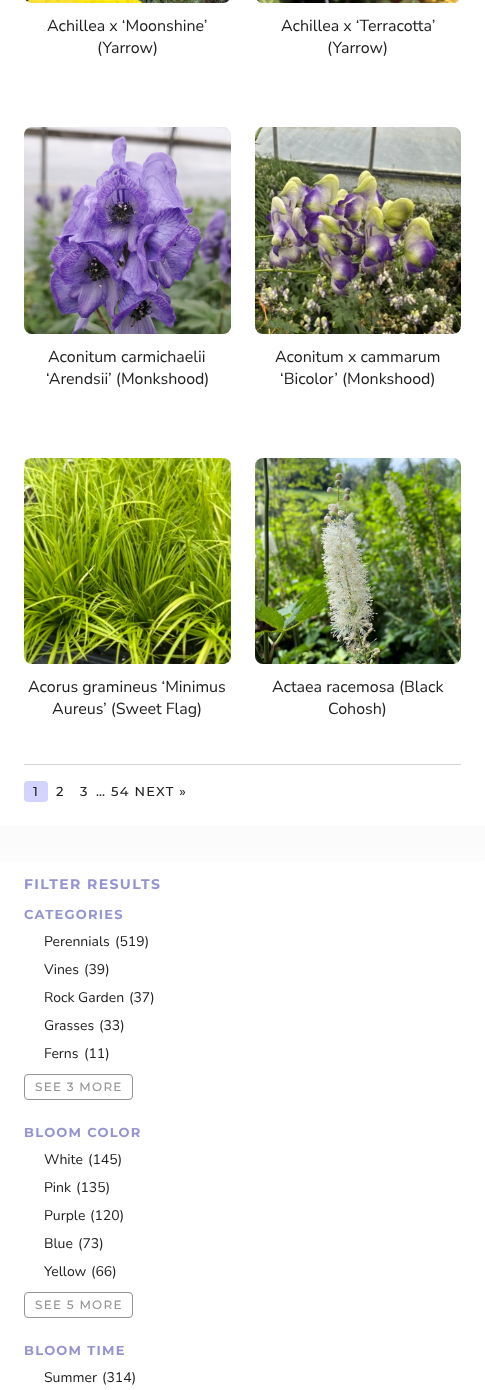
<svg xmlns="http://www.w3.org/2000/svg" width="485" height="1390">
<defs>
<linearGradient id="g1" gradientUnits="userSpaceOnUse" x1="242" y1="826" x2="243" y2="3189"><stop offset="0" stop-color="#fafafa"/><stop offset="0.03" stop-color="#fff"/></linearGradient>
</defs>
<rect width="100%" height="100%" fill="#fff"/>
<image x="26" y="0" width="203" height="3" href="media/1.png"/>
<text x="47" y="31" style="font-family:Nunito Sans;font-size:16px;fill:#212121">Achillea x ‘Moonshine’</text>
<text x="97" y="53" style="font-family:Nunito Sans;font-size:16px;fill:#212121">(Yarrow)</text>
<image x="257" y="0" width="202" height="3" href="media/2.png"/>
<text x="281" y="31" style="font-family:Nunito Sans;font-size:16px;fill:#212121">Achillea x ‘Terracotta’</text>
<text x="327" y="53" style="font-family:Nunito Sans;font-size:16px;fill:#212121">(Yarrow)</text>
<image x="24" y="127" width="207" height="207" href="media/3.png"/>
<text x="48" y="362" style="font-family:Nunito Sans;font-size:16px;fill:#212121">Aconitum carmichaelii</text>
<text x="46" y="384" style="font-family:Nunito Sans;font-size:16px;fill:#212121">‘Arendsii’ (Monkshood)</text>
<image x="255" y="127" width="206" height="207" href="media/4.png"/>
<text x="275" y="362" style="font-family:Nunito Sans;font-size:16px;fill:#212121">Aconitum x cammarum</text>
<text x="280" y="384" style="font-family:Nunito Sans;font-size:16px;fill:#212121">‘Bicolor’ (Monkshood)</text>
<image x="24" y="458" width="207" height="206" href="media/5.png"/>
<text x="28" y="692" style="font-family:Nunito Sans;font-size:16px;fill:#212121">Acorus gramineus ‘Minimus</text>
<text x="52" y="714" style="font-family:Nunito Sans;font-size:16px;fill:#212121">Aureus’ (Sweet Flag)</text>
<image x="255" y="458" width="206" height="206" href="media/6.png"/>
<text x="272" y="692" style="font-family:Nunito Sans;font-size:16px;fill:#212121">Actaea racemosa (Black</text>
<text x="328" y="714" style="font-family:Nunito Sans;font-size:16px;fill:#212121">Cohosh)</text>
<rect x="24" y="764" width="437" height="1" fill="#d5d5d6"/>
<rect x="24" y="781" width="24" height="21" rx="4" fill="#d3d3ff"/>
<text x="33" y="796" style="font-family:Montserrat;font-size:13px;font-weight:500;letter-spacing:1.25px;fill:#212121">1</text>
<text x="56" y="796" style="font-family:Montserrat;font-size:13px;font-weight:500;letter-spacing:1.25px;fill:#212121">2</text>
<text x="80" y="796" style="font-family:Montserrat;font-size:13px;font-weight:500;letter-spacing:1.25px;fill:#212121">3</text>
<text x="96" y="796" style="font-family:Montserrat;font-size:13px;font-weight:500;letter-spacing:1.25px;fill:#212121">… 54 NEXT »</text>
<rect y="826" width="485" height="36" fill="url(#g1)"/>
<text x="24" y="889" style="font-family:Montserrat;font-size:14px;font-weight:bold;letter-spacing:1.4px;fill:#9594d1">FILTER RESULTS</text>
<text x="24" y="919" style="font-family:Montserrat;font-size:13px;font-weight:bold;letter-spacing:1.25px;fill:#9594d1">CATEGORIES</text>
<text x="44" y="946" style="font-family:Nunito Sans;font-size:14px;fill:#212121">Perennials</text>
<text x="115" y="946" style="font-family:Nunito Sans;font-size:14px;fill:#212121">(519)</text>
<text x="44" y="974" style="font-family:Nunito Sans;font-size:14px;fill:#212121">Vines</text>
<text x="84" y="974" style="font-family:Nunito Sans;font-size:14px;fill:#212121">(39)</text>
<text x="44" y="1002" style="font-family:Nunito Sans;font-size:14px;fill:#212121">Rock Garden</text>
<text x="129" y="1002" style="font-family:Nunito Sans;font-size:14px;fill:#212121">(37)</text>
<text x="44" y="1030" style="font-family:Nunito Sans;font-size:14px;fill:#212121">Grasses</text>
<text x="99" y="1030" style="font-family:Nunito Sans;font-size:14px;fill:#212121">(33)</text>
<text x="44" y="1058" style="font-family:Nunito Sans;font-size:14px;fill:#212121">Ferns</text>
<text x="84" y="1058" style="font-family:Nunito Sans;font-size:14px;fill:#212121">(11)</text>
<rect x="24.5" y="1074.5" width="108" height="25" rx="3.5" fill="none" stroke="#939394"/>
<text x="35" y="1091" style="font-family:Montserrat;font-size:12px;font-weight:500;letter-spacing:1.25px;fill:#939394">SEE 3 MORE</text>
<text x="24" y="1137" style="font-family:Montserrat;font-size:13px;font-weight:bold;letter-spacing:1.25px;fill:#9594d1">BLOOM COLOR</text>
<text x="44" y="1164" style="font-family:Nunito Sans;font-size:14px;fill:#212121">White</text>
<text x="88" y="1164" style="font-family:Nunito Sans;font-size:14px;fill:#212121">(145)</text>
<text x="44" y="1192" style="font-family:Nunito Sans;font-size:14px;fill:#212121">Pink</text>
<text x="76" y="1192" style="font-family:Nunito Sans;font-size:14px;fill:#212121">(135)</text>
<text x="44" y="1220" style="font-family:Nunito Sans;font-size:14px;fill:#212121">Purple</text>
<text x="90" y="1220" style="font-family:Nunito Sans;font-size:14px;fill:#212121">(120)</text>
<text x="44" y="1248" style="font-family:Nunito Sans;font-size:14px;fill:#212121">Blue</text>
<text x="78" y="1248" style="font-family:Nunito Sans;font-size:14px;fill:#212121">(73)</text>
<text x="44" y="1276" style="font-family:Nunito Sans;font-size:14px;fill:#212121">Yellow</text>
<text x="91" y="1276" style="font-family:Nunito Sans;font-size:14px;fill:#212121">(66)</text>
<rect x="24.5" y="1292.5" width="108" height="25" rx="3.5" fill="none" stroke="#939394"/>
<text x="35" y="1309" style="font-family:Montserrat;font-size:12px;font-weight:500;letter-spacing:1.25px;fill:#939394">SEE 5 MORE</text>
<text x="24" y="1355" style="font-family:Montserrat;font-size:13px;font-weight:bold;letter-spacing:1.25px;fill:#9594d1">BLOOM TIME</text>
<text x="44" y="1382" style="font-family:Nunito Sans;font-size:14px;fill:#212121">Summer</text>
<text x="102" y="1382" style="font-family:Nunito Sans;font-size:14px;fill:#212121">(314)</text>
</svg>
